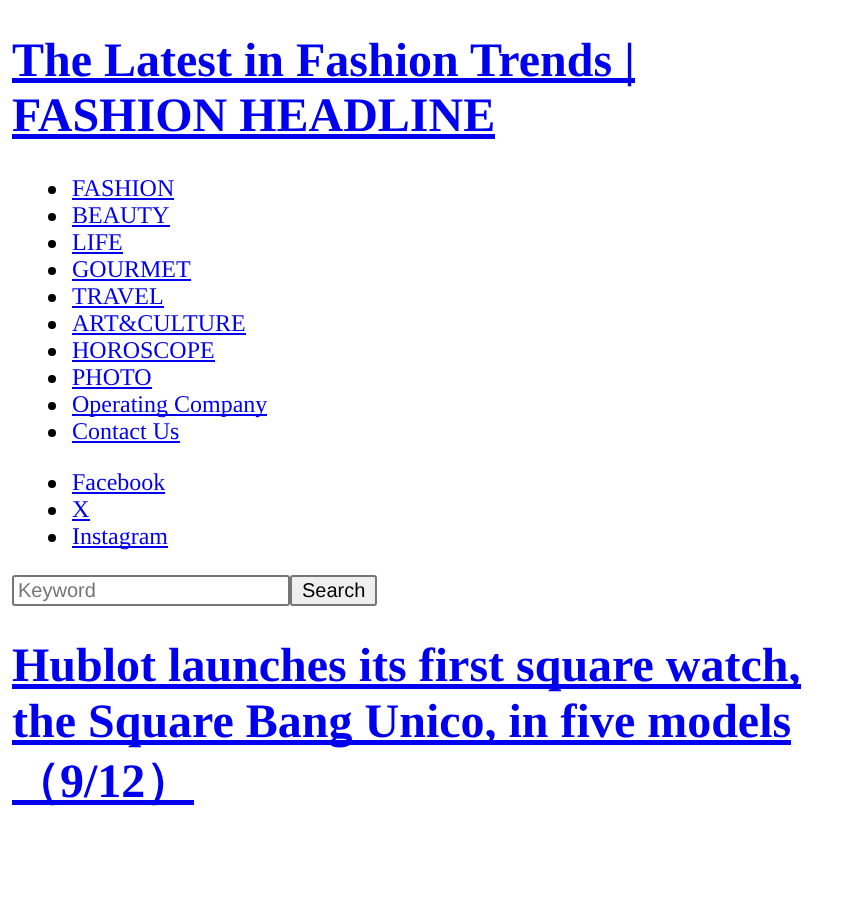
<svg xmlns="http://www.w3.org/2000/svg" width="855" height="902">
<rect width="100%" height="100%" fill="#fff"/>
<rect x="12" y="78" width="623" height="5" fill="#00e"/>
<text x="12" y="76" style="font-family:Liberation Serif;font-size:48px;font-weight:bold;fill:#00e">The Latest in Fashion Trends |</text>
<text x="12" y="131" style="font-family:Liberation Serif;font-size:48px;font-weight:bold;fill:#00e">FASHION HEADLINE</text>
<rect x="12" y="134" width="483" height="5" fill="#00e"/>
<circle cx="52" cy="190" r="4" fill="#000"/>
<text x="72" y="196" style="font-family:Liberation Serif;font-size:24px;fill:#00e">FASHION</text>
<rect x="72" y="198" width="102" height="2" fill="#00e"/>
<circle cx="52" cy="217" r="4" fill="#000"/>
<text x="72" y="223" style="font-family:Liberation Serif;font-size:24px;fill:#00e">BEAUTY</text>
<rect x="72" y="225" width="98" height="2" fill="#00e"/>
<circle cx="52" cy="244" r="4" fill="#000"/>
<text x="72" y="250" style="font-family:Liberation Serif;font-size:24px;fill:#00e">LIFE</text>
<rect x="72" y="252" width="51" height="2" fill="#00e"/>
<circle cx="52" cy="271" r="4" fill="#000"/>
<text x="72" y="277" style="font-family:Liberation Serif;font-size:24px;fill:#00e">GOURMET</text>
<rect x="72" y="279" width="119" height="2" fill="#00e"/>
<circle cx="52" cy="298" r="4" fill="#000"/>
<text x="72" y="304" style="font-family:Liberation Serif;font-size:24px;fill:#00e">TRAVEL</text>
<rect x="72" y="306" width="92" height="2" fill="#00e"/>
<circle cx="52" cy="325" r="4" fill="#000"/>
<text x="72" y="331" style="font-family:Liberation Serif;font-size:24px;fill:#00e">ART&amp;CULTURE</text>
<rect x="72" y="333" width="174" height="2" fill="#00e"/>
<circle cx="52" cy="352" r="4" fill="#000"/>
<text x="72" y="358" style="font-family:Liberation Serif;font-size:24px;fill:#00e">HOROSCOPE</text>
<rect x="72" y="360" width="143" height="2" fill="#00e"/>
<circle cx="52" cy="379" r="4" fill="#000"/>
<text x="72" y="385" style="font-family:Liberation Serif;font-size:24px;fill:#00e">PHOTO</text>
<rect x="72" y="387" width="80" height="2" fill="#00e"/>
<circle cx="52" cy="406" r="4" fill="#000"/>
<rect x="72" y="414" width="195" height="2" fill="#00e"/>
<text x="72" y="412" style="font-family:Liberation Serif;font-size:24px;fill:#00e">Operating Company</text>
<circle cx="52" cy="433" r="4" fill="#000"/>
<text x="72" y="439" style="font-family:Liberation Serif;font-size:24px;fill:#00e">Contact Us</text>
<rect x="72" y="441" width="108" height="2" fill="#00e"/>
<circle cx="52" cy="484" r="4" fill="#000"/>
<text x="72" y="490" style="font-family:Liberation Serif;font-size:24px;fill:#00e">Facebook</text>
<rect x="72" y="492" width="93" height="2" fill="#00e"/>
<circle cx="52" cy="511" r="4" fill="#000"/>
<text x="72" y="517" style="font-family:Liberation Serif;font-size:24px;fill:#00e">X</text>
<rect x="72" y="519" width="18" height="2" fill="#00e"/>
<circle cx="52" cy="538" r="4" fill="#000"/>
<rect x="72" y="546" width="96" height="2" fill="#00e"/>
<text x="72" y="544" style="font-family:Liberation Serif;font-size:24px;fill:#00e">Instagram</text>
<rect x="13" y="576" width="276" height="29" rx="2" fill="none" stroke="#767676" stroke-width="2"/>
<text x="18" y="597" style="font-family:Liberation Sans;font-size:20px;fill:#757575">Keyword</text>
<rect x="291" y="576" width="85" height="29" rx="2" fill="#efefef" stroke="#767676" stroke-width="2"/>
<text x="302" y="597" style="font-family:Liberation Sans;font-size:20px;fill:#000">Search</text>
<rect x="12" y="684" width="789" height="5" fill="#00e"/>
<text x="12" y="681" style="font-family:Liberation Serif;font-size:48px;font-weight:bold;fill:#00e">Hublot launches its first square watch,</text>
<rect x="12" y="740" width="779" height="5" fill="#00e"/>
<text x="12" y="737" style="font-family:Liberation Serif;font-size:48px;font-weight:bold;fill:#00e">the Square Bang Unico, in five models</text>
<rect x="12" y="800" width="182" height="5" fill="#00e"/>
<text x="12" y="797" style="font-family:WenQuanYi Zen Hei;font-size:48px;font-weight:bold;fill:#00e">（</text>
<text x="60" y="797" style="font-family:Liberation Serif;font-size:48px;font-weight:bold;fill:#00e">9/12</text>
<text x="145" y="797" style="font-family:WenQuanYi Zen Hei;font-size:48px;font-weight:bold;fill:#00e">）</text>
</svg>
